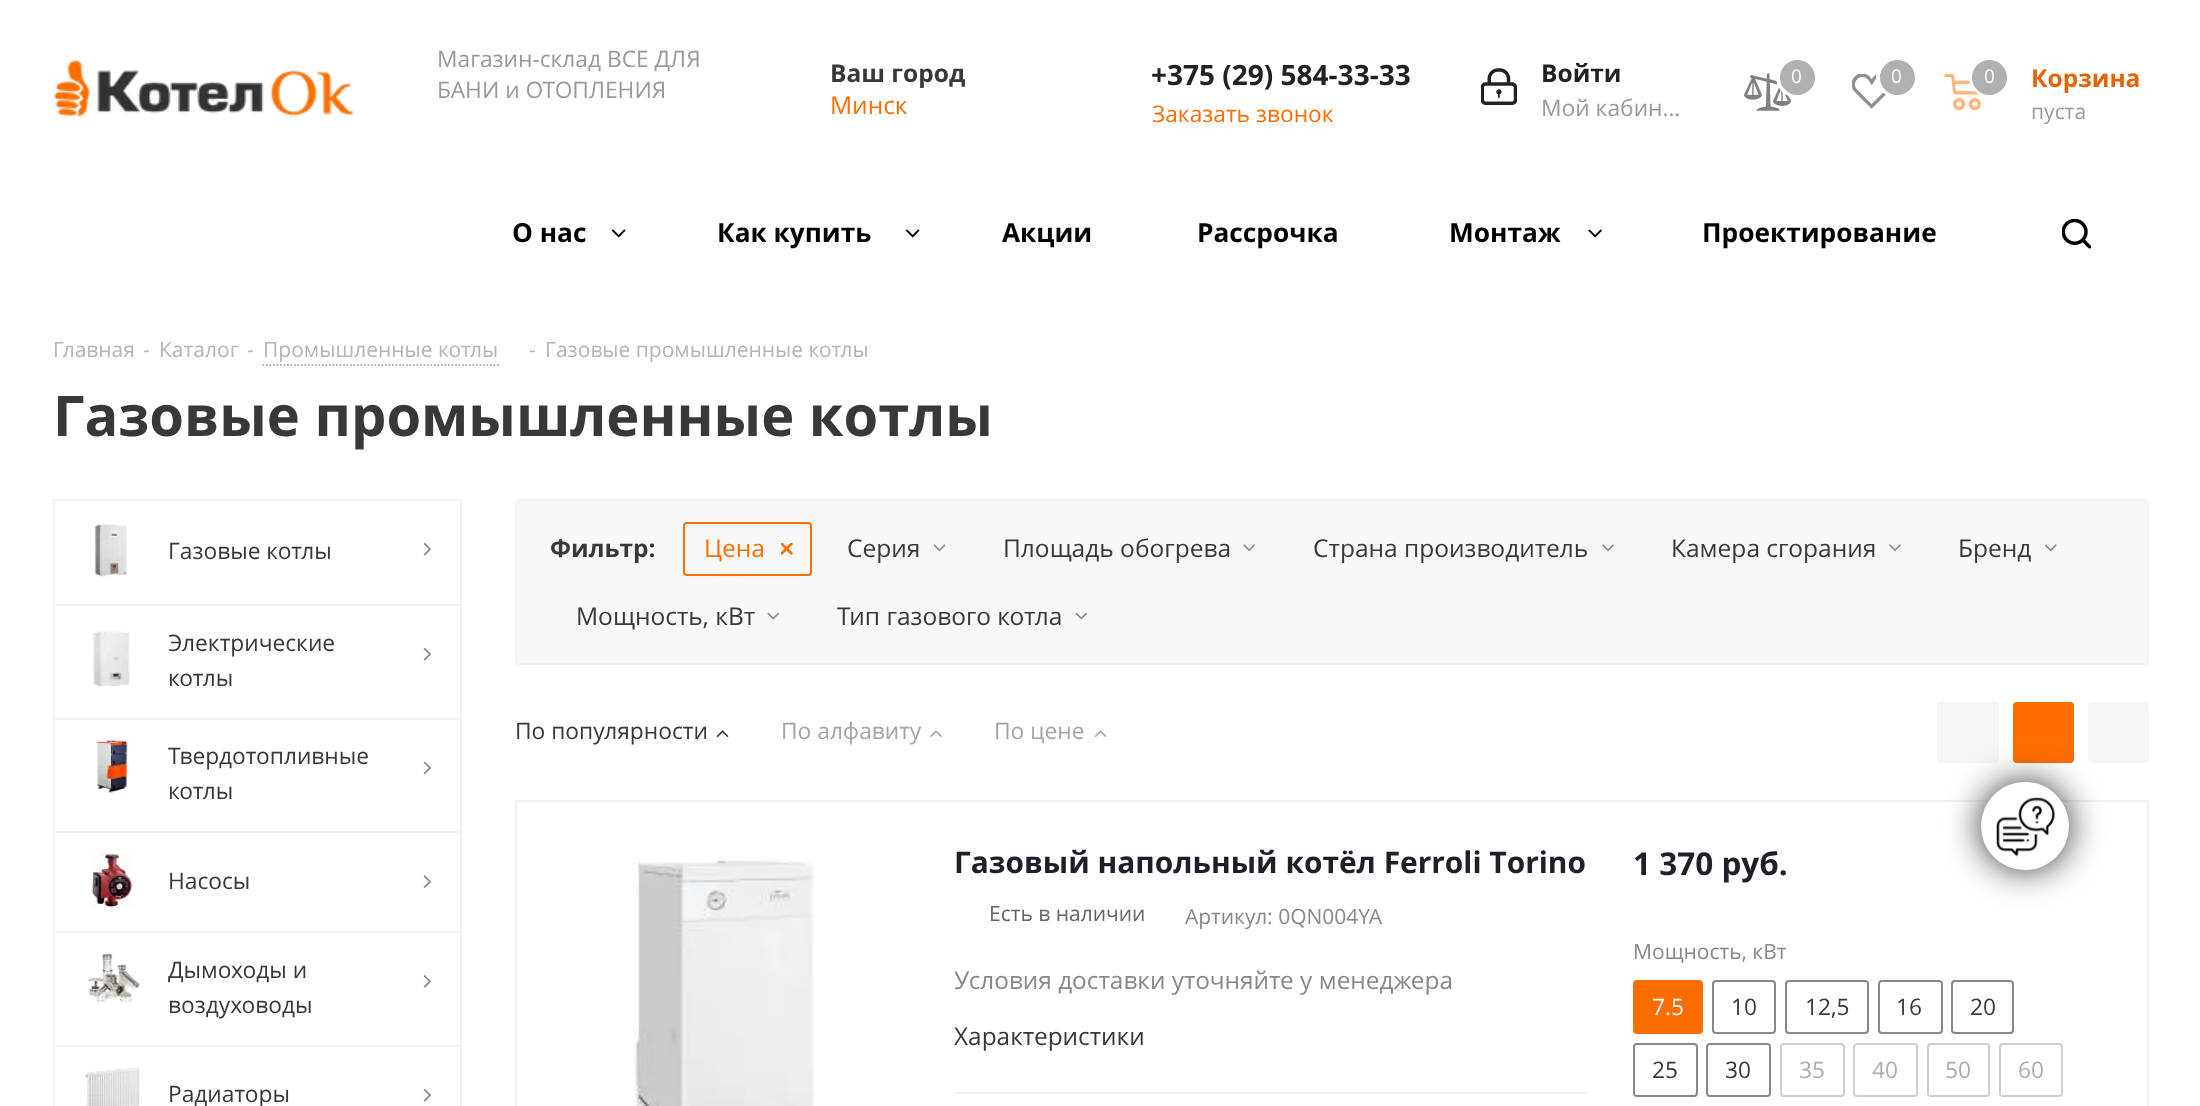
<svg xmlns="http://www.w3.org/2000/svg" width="2200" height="1106">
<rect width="100%" height="100%" fill="#fff"/>
<image x="53" y="59" width="301" height="58" href="media/1.png"/>
<text x="437" y="67" style="font-family:Open Sans;font-size:22.75px;fill:#999">Магазин-склад ВСЕ ДЛЯ</text>
<text x="437" y="98" style="font-family:Open Sans;font-size:22.75px;fill:#999">БАНИ и ОТОПЛЕНИЯ</text>
<text x="830" y="82" style="font-family:Open Sans;font-size:24.5px;font-weight:bold;fill:#383838">Ваш город</text>
<text x="830" y="114" style="font-family:Open Sans;font-size:24.5px;fill:#ff6d00">Минск</text>
<text x="1151" y="85" style="font-family:Open Sans;font-size:28px;font-weight:bold;fill:#222">+375 (29) 584-33-33</text>
<text x="1152" y="122" style="font-family:Open Sans;font-size:22.75px;fill:#ff6d00">Заказать звонок</text>
<image x="1481" y="68" width="36" height="37" href="media/2.png"/>
<text x="1541" y="82" style="font-family:Open Sans;font-size:24.5px;font-weight:bold;fill:#222">Войти</text>
<text x="1541" y="116" style="font-family:Open Sans;font-size:22.75px;fill:#999">Мой кабин…</text>
<image x="1744" y="73" width="47" height="38" href="media/3.png"/>
<circle cx="1797" cy="77" r="19" fill="none" stroke="#fff" stroke-width="4"/>
<circle cx="1797.5" cy="77.5" r="17.5" fill="#b0b0b0"/>
<text x="1791" y="83" style="font-family:Open Sans;font-size:19px;fill:#fff">0</text>
<image x="1852" y="74" width="36" height="35" href="media/4.png"/>
<circle cx="1897" cy="77" r="19" fill="none" stroke="#fff" stroke-width="4"/>
<circle cx="1897.5" cy="77.5" r="17.5" fill="#b0b0b0"/>
<text x="1891" y="83" style="font-family:Open Sans;font-size:19px;fill:#fff">0</text>
<image x="1944" y="74" width="37" height="36" href="media/5.png"/>
<circle cx="1990" cy="77" r="19" fill="none" stroke="#fff" stroke-width="4"/>
<circle cx="1989.5" cy="77.5" r="17.5" fill="#b0b0b0"/>
<text x="1984" y="83" style="font-family:Open Sans;font-size:19px;fill:#fff">0</text>
<text x="2031" y="87" style="font-family:Open Sans;font-size:24.5px;font-weight:bold;fill:#e66200">Корзина</text>
<text x="2031" y="119" style="font-family:Open Sans;font-size:21px;fill:#999">пуста</text>
<text x="512" y="242" style="font-family:Open Sans;font-size:26.25px;font-weight:bold;fill:#000">О нас</text>
<image x="611" y="229" width="15" height="9" href="media/6.png"/>
<text x="717" y="242" style="font-family:Open Sans;font-size:26.25px;font-weight:bold;fill:#000">Как купить</text>
<image x="905" y="229" width="15" height="9" href="media/6.png"/>
<text x="1002" y="242" style="font-family:Open Sans;font-size:26.25px;font-weight:bold;fill:#000">Акции</text>
<text x="1197" y="242" style="font-family:Open Sans;font-size:26.25px;font-weight:bold;fill:#000">Рассрочка</text>
<text x="1449" y="242" style="font-family:Open Sans;font-size:26.25px;font-weight:bold;fill:#000">Монтаж</text>
<image x="1588" y="229" width="14" height="9" href="media/7.png"/>
<text x="1702" y="242" style="font-family:Open Sans;font-size:26.25px;font-weight:bold;fill:#000">Проектирование</text>
<image x="2062" y="219" width="29" height="30" href="media/8.png"/>
<text x="53" y="357" style="font-family:Open Sans;font-size:21px;fill:#b6b5b5">Главная</text>
<text x="143" y="357" style="font-family:Open Sans;font-size:21px;fill:#b6b5b5">-</text>
<text x="159" y="357" style="font-family:Open Sans;font-size:21px;fill:#b6b5b5">Каталог</text>
<text x="247" y="357" style="font-family:Open Sans;font-size:21px;fill:#b6b5b5">-</text>
<text x="263" y="357" style="font-family:Open Sans;font-size:21px;fill:#b6b5b5">Промышленные котлы</text>
<path d="M262.5 365h236.5" fill="none" stroke="#b4b4b4" stroke-width="1.8" stroke-dasharray="1.75 1.75"/>
<text x="529" y="357" style="font-family:Open Sans;font-size:21px;fill:#b6b5b5">-</text>
<text x="545" y="357" style="font-family:Open Sans;font-size:21px;fill:#b6b5b5">Газовые промышленные котлы</text>
<text x="53" y="436" style="font-family:Open Sans;font-size:56px;font-weight:bold;fill:#383838">Газовые промышленные котлы</text>
<rect x="53" y="499" width="409" height="2" fill="#f2f2f2"/>
<rect x="460" y="499" width="2" height="105" fill="#f2f2f2"/>
<rect x="53" y="499" width="2" height="105" fill="#f2f2f2"/>
<image x="94" y="524" width="33" height="53" href="media/9.png"/>
<text x="168" y="559" style="font-family:Open Sans;font-size:22.75px;fill:#383838">Газовые котлы</text>
<image x="423" y="542" width="8" height="14" href="media/10.png"/>
<rect x="53" y="604" width="409" height="2" fill="#f2f2f2"/>
<rect x="460" y="604" width="2" height="114" fill="#f2f2f2"/>
<rect x="53" y="604" width="2" height="114" fill="#f2f2f2"/>
<image x="93" y="630" width="37" height="57" href="media/11.png"/>
<text x="168" y="651" style="font-family:Open Sans;font-size:22.75px;fill:#383838">Электрические</text>
<text x="168" y="686" style="font-family:Open Sans;font-size:22.75px;fill:#383838">котлы</text>
<image x="423" y="647" width="8" height="14" href="media/10.png"/>
<rect x="53" y="718" width="409" height="2" fill="#f2f2f2"/>
<rect x="460" y="718" width="2" height="113" fill="#f2f2f2"/>
<rect x="53" y="718" width="2" height="113" fill="#f2f2f2"/>
<image x="96" y="740" width="32" height="53" href="media/12.png"/>
<text x="168" y="764" style="font-family:Open Sans;font-size:22.75px;fill:#383838">Твердотопливные</text>
<text x="168" y="799" style="font-family:Open Sans;font-size:22.75px;fill:#383838">котлы</text>
<image x="423" y="761" width="8" height="14" href="media/13.png"/>
<rect x="53" y="831" width="409" height="2" fill="#f2f2f2"/>
<rect x="460" y="831" width="2" height="100" fill="#f2f2f2"/>
<rect x="53" y="831" width="2" height="100" fill="#f2f2f2"/>
<image x="90" y="852" width="46" height="56" href="media/14.png"/>
<text x="168" y="889" style="font-family:Open Sans;font-size:22.75px;fill:#383838">Насосы</text>
<image x="423" y="875" width="8" height="13" href="media/15.png"/>
<rect x="53" y="931" width="409" height="2" fill="#f2f2f2"/>
<rect x="460" y="931" width="2" height="114" fill="#f2f2f2"/>
<rect x="53" y="931" width="2" height="114" fill="#f2f2f2"/>
<image x="87" y="953" width="53" height="50" href="media/16.png"/>
<text x="168" y="978" style="font-family:Open Sans;font-size:22.75px;fill:#383838">Дымоходы и</text>
<text x="168" y="1013" style="font-family:Open Sans;font-size:22.75px;fill:#383838">воздуховоды</text>
<image x="423" y="975" width="8" height="13" href="media/17.png"/>
<rect x="53" y="1045" width="409" height="2" fill="#f2f2f2"/>
<rect x="460" y="1045" width="2" height="61" fill="#f2f2f2"/>
<rect x="53" y="1045" width="2" height="61" fill="#f2f2f2"/>
<image x="84" y="1067" width="56" height="39" href="media/18.png"/>
<text x="168" y="1102" style="font-family:Open Sans;font-size:22.75px;fill:#383838">Радиаторы</text>
<image x="423" y="1088" width="8" height="14" href="media/10.png"/>
<rect x="516" y="500" width="1632" height="164" rx="3" fill="#f8f8f9" stroke="#f2f2f2" stroke-width="2"/>
<rect x="684" y="523" width="127" height="52" rx="3" fill="none" stroke="#ff6d00" stroke-width="2"/>
<text x="704" y="557" style="font-family:Open Sans;font-size:24.5px;fill:#ff6d00">Цена</text>
<image x="781" y="543" width="12" height="12" href="media/19.png"/>
<text x="847" y="557" style="font-family:Open Sans;font-size:24.5px;fill:#383838">Серия</text>
<image x="933" y="544" width="13" height="8" href="media/20.png"/>
<text x="1003" y="557" style="font-family:Open Sans;font-size:24.5px;fill:#383838">Площадь обогрева</text>
<image x="1243" y="544" width="12" height="8" href="media/21.png"/>
<text x="1313" y="557" style="font-family:Open Sans;font-size:24.5px;fill:#383838">Страна производитель</text>
<image x="1602" y="544" width="12" height="8" href="media/22.png"/>
<text x="1671" y="557" style="font-family:Open Sans;font-size:24.5px;fill:#383838">Камера сгорания</text>
<image x="1889" y="544" width="12" height="8" href="media/22.png"/>
<text x="1958" y="557" style="font-family:Open Sans;font-size:24.5px;fill:#383838">Бренд</text>
<image x="2045" y="544" width="12" height="8" href="media/23.png"/>
<text x="576" y="625" style="font-family:Open Sans;font-size:24.5px;fill:#383838">Мощность, кВт</text>
<image x="767" y="612" width="12" height="8" href="media/24.png"/>
<text x="837" y="625" style="font-family:Open Sans;font-size:24.5px;fill:#383838">Тип газового котла</text>
<image x="1075" y="612" width="12" height="8" href="media/24.png"/>
<text x="550" y="557" style="font-family:Open Sans;font-size:24.5px;font-weight:bold;fill:#383838">Фильтр:</text>
<text x="515" y="739" style="font-family:Open Sans;font-size:22.75px;fill:#383838">По популярности</text>
<image x="716" y="730" width="13" height="7" href="media/25.png"/>
<text x="781" y="739" style="font-family:Open Sans;font-size:22.75px;fill:#a5a3a3">По алфавиту</text>
<image x="930" y="730" width="12" height="7" href="media/26.png"/>
<text x="994" y="739" style="font-family:Open Sans;font-size:22.75px;fill:#a5a3a3">По цене</text>
<image x="1094" y="730" width="13" height="7" href="media/27.png"/>
<rect x="1937" y="702" width="62" height="61" rx="4" fill="#f5f5f5"/>
<rect x="2013" y="702" width="61" height="61" rx="4" fill="#ff6d00"/>
<rect x="2088" y="702" width="61" height="61" rx="4" fill="#f5f5f5"/>
<rect x="516" y="801" width="1632" height="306" fill="none" stroke="#f2f2f2" stroke-width="2"/>
<image x="633" y="856" width="182" height="250" href="media/28.png"/>
<text x="954" y="873" style="font-family:Open Sans;font-size:29.9px;font-weight:bold;fill:#1d2029">Газовый напольный котёл Ferroli Torino</text>
<text x="989" y="921" style="font-family:Open Sans;font-size:21px;fill:#666">Есть в наличии</text>
<text x="1185" y="924" style="font-family:Open Sans;font-size:21px;fill:#888">Артикул: 0QN004YA</text>
<text x="954" y="989" style="font-family:Open Sans;font-size:24.4px;fill:#888">Условия доставки уточняйте у менеджера</text>
<text x="954" y="1045" style="font-family:Open Sans;font-size:24.4px;fill:#383838">Характеристики</text>
<rect x="954" y="1092" width="633" height="2" fill="#f2f2f2"/>
<text x="1633" y="875" style="font-family:Open Sans;font-size:31.5px;font-weight:bold;fill:#1d2029">1 370 руб.</text>
<text x="1633" y="959" style="font-family:Open Sans;font-size:21px;fill:#888">Мощность, кВт</text>
<rect x="1634" y="981" width="68" height="52" rx="3" fill="#fa6b00" stroke="#ff6d00" stroke-width="2"/>
<text x="1652" y="1015" style="font-family:Open Sans;font-size:22.75px;fill:#fff">7.5</text>
<rect x="1713" y="981" width="62" height="52" rx="3" fill="none" stroke="#888" stroke-width="2"/>
<text x="1731" y="1015" style="font-family:Open Sans;font-size:22.75px;fill:#383838">10</text>
<rect x="1786" y="981" width="82" height="52" rx="3" fill="none" stroke="#888" stroke-width="2"/>
<text x="1805" y="1015" style="font-family:Open Sans;font-size:22.75px;fill:#383838">12,5</text>
<rect x="1879" y="981" width="63" height="52" rx="3" fill="none" stroke="#888" stroke-width="2"/>
<text x="1896" y="1015" style="font-family:Open Sans;font-size:22.75px;fill:#383838">16</text>
<rect x="1952" y="981" width="61" height="52" rx="3" fill="none" stroke="#888" stroke-width="2"/>
<text x="1970" y="1015" style="font-family:Open Sans;font-size:22.75px;fill:#383838">20</text>
<rect x="1634" y="1044" width="63" height="52" rx="3" fill="none" stroke="#888" stroke-width="2"/>
<text x="1652" y="1078" style="font-family:Open Sans;font-size:22.75px;fill:#383838">25</text>
<rect x="1707" y="1044" width="63" height="52" rx="3" fill="none" stroke="#888" stroke-width="2"/>
<text x="1725" y="1078" style="font-family:Open Sans;font-size:22.75px;fill:#383838">30</text>
<rect x="1781" y="1044" width="63" height="52" rx="3" fill="none" stroke="#cfcfcf" stroke-width="2"/>
<text x="1799" y="1078" style="font-family:Open Sans;font-size:22.75px;fill:#adadad">35</text>
<rect x="1854" y="1044" width="63" height="52" rx="3" fill="none" stroke="#cfcfcf" stroke-width="2"/>
<text x="1872" y="1078" style="font-family:Open Sans;font-size:22.75px;fill:#adadad">40</text>
<rect x="1928" y="1044" width="61" height="52" rx="3" fill="none" stroke="#cfcfcf" stroke-width="2"/>
<text x="1945" y="1078" style="font-family:Open Sans;font-size:22.75px;fill:#adadad">50</text>
<rect x="2000" y="1044" width="62" height="52" rx="3" fill="none" stroke="#cfcfcf" stroke-width="2"/>
<text x="2018" y="1078" style="font-family:Open Sans;font-size:22.75px;fill:#adadad">60</text>
<rect x="1981" y="782" width="88" height="88" rx="44" fill="#000000cc" filter="blur(17.5px)"/>
<circle cx="2025" cy="826" r="44" fill="#fff"/>
<image x="1996" y="797" width="59" height="60" href="media/29.png"/>
</svg>
